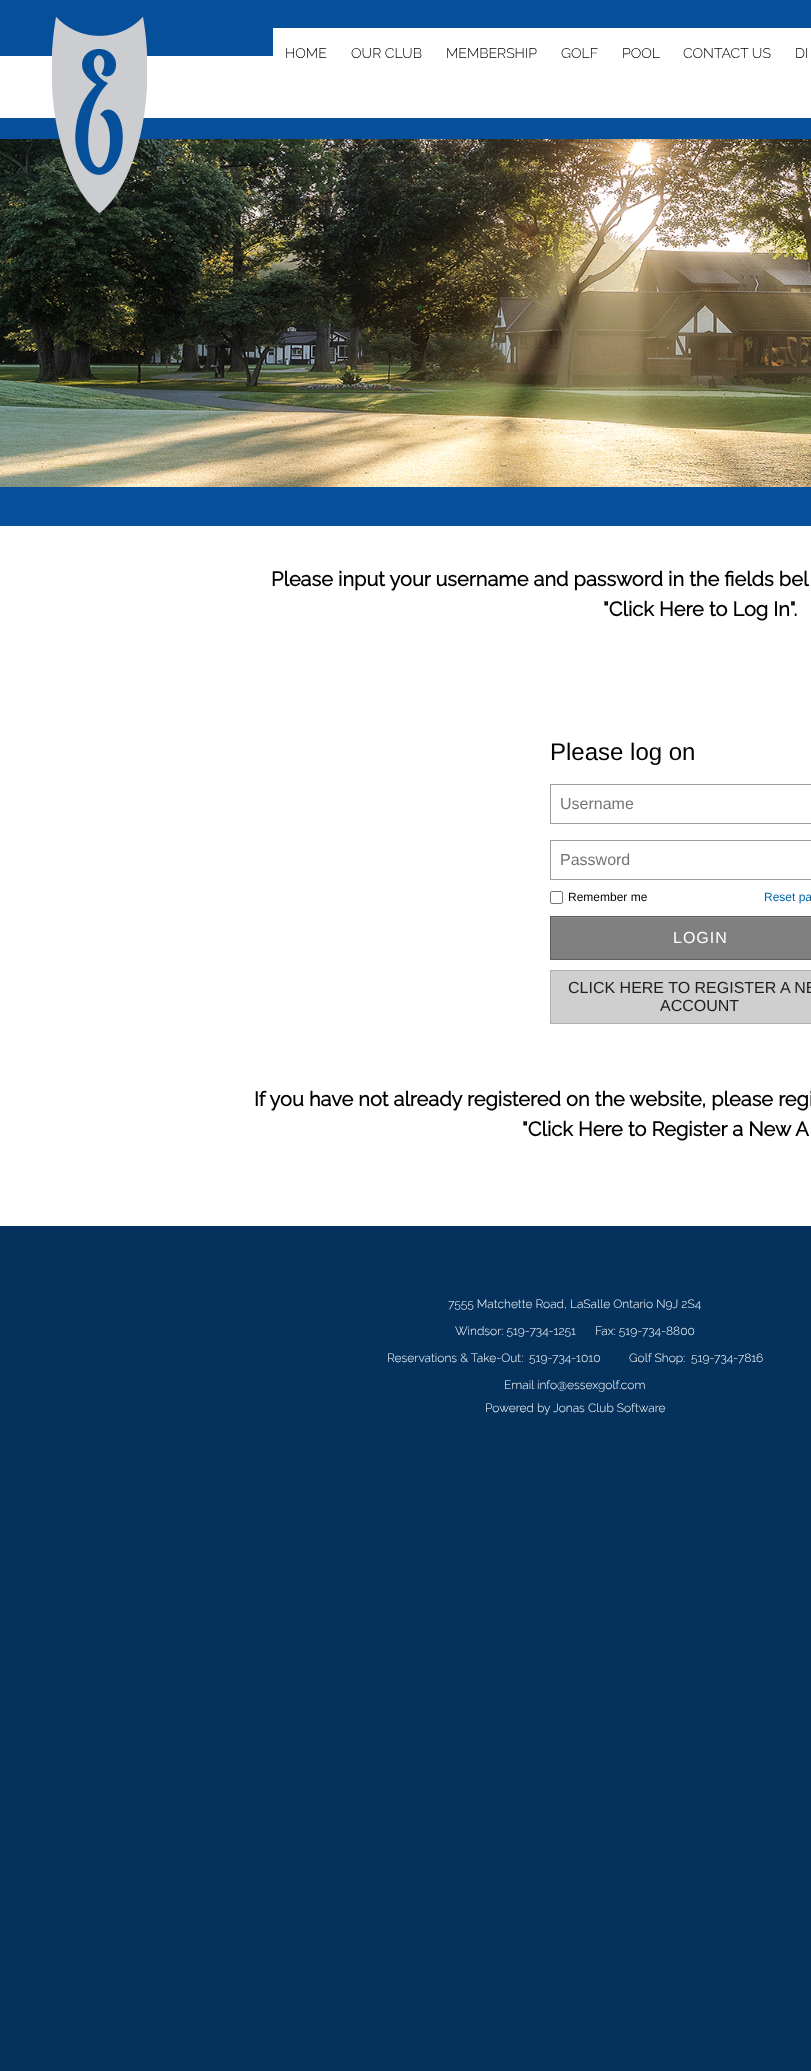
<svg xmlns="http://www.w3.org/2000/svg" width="811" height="2071">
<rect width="100%" height="100%" fill="#05325c"/>
<image x="0" y="139" width="811" height="348" href="media/3.png"/>
<image x="0" y="0" width="811" height="526" href="media/1.png"/>
<image x="51" y="17" width="97" height="196" href="media/2.png"/>
<rect x="273" y="28" width="538" height="28" fill="#fff"/>
<text x="285" y="58" style="font-family:Raleway;font-size:14px;font-weight:300;fill:#000">HOME</text>
<text x="351" y="58" style="font-family:Raleway;font-size:14px;font-weight:300;fill:#000">OUR CLUB</text>
<text x="446" y="58" style="font-family:Raleway;font-size:14px;font-weight:300;fill:#000">MEMBERSHIP</text>
<text x="561" y="58" style="font-family:Raleway;font-size:14px;font-weight:300;fill:#000">GOLF</text>
<text x="622" y="58" style="font-family:Raleway;font-size:14px;font-weight:300;fill:#000">POOL</text>
<text x="683" y="58" style="font-family:Raleway;font-size:14px;font-weight:300;fill:#000">CONTACT US</text>
<text x="795" y="58" style="font-family:Raleway;font-size:14px;font-weight:300;fill:#000">DI</text>
<rect y="526" width="811" height="700" fill="#fff"/>
<text x="271" y="586" style="font-family:Raleway;font-size:20px;font-weight:bold;fill:#000">Please input your username and password in the fields bel</text>
<text x="603" y="616" style="font-family:Raleway;font-size:20px;font-weight:bold;fill:#000">"Click Here to Log In".</text>
<text x="550" y="760" style="font-family:Liberation Sans;font-size:24px;fill:#000">Please log on</text>
<rect x="550.5" y="784.5" width="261" height="39" fill="none" stroke="#9e9e9e"/>
<text x="560" y="809" style="font-family:Liberation Sans;font-size:16px;fill:#757575">Username</text>
<rect x="550.5" y="840.5" width="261" height="39" fill="none" stroke="#9e9e9e"/>
<text x="560" y="865" style="font-family:Liberation Sans;font-size:16px;fill:#757575">Password</text>
<rect x="550.5" y="891.5" width="12" height="12" rx="1.5" fill="none" stroke="#767676"/>
<text x="568" y="901" style="font-family:Liberation Sans;font-size:12px;fill:#000">Remember me</text>
<text x="764" y="901" style="font-family:Liberation Sans;font-size:12px;fill:#06a">Reset pa</text>
<rect x="551" y="918" width="260" height="41" fill="#808080"/>
<rect x="551" y="917" width="260" height="1" fill="#939393"/>
<rect x="550.5" y="916.5" width="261" height="43" fill="none" stroke="#5d5d5d"/>
<text x="673" y="943" style="font-family:Liberation Sans;font-size:16px;letter-spacing:1px;fill:#fff">LOGIN</text>
<rect x="550.5" y="970.5" width="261" height="53" fill="#cfcfcf" stroke="#afafaf"/>
<text x="568" y="993" style="font-family:Liberation Sans;font-size:16px;fill:#1f1f1f">CLICK HERE TO REGISTER A NE</text>
<text x="660" y="1011" style="font-family:Liberation Sans;font-size:16px;fill:#1f1f1f">ACCOUNT</text>
<text x="254" y="1106" style="font-family:Raleway;font-size:20px;font-weight:bold;fill:#000">If you have not already registered on the website, please regi</text>
<text x="522" y="1136" style="font-family:Raleway;font-size:20px;font-weight:bold;fill:#000">"Click Here to Register a New A</text>
<text x="448" y="1308" style="font-family:Raleway;font-size:12px;font-weight:300;fill:#fff">7555 Matchette Road, LaSalle Ontario N9J 2S4</text>
<text x="455" y="1335" style="font-family:Raleway;font-size:12px;font-weight:300;fill:#fff">Windsor: 519-734-1251</text>
<text x="595" y="1335" style="font-family:Raleway;font-size:12px;font-weight:300;fill:#fff">Fax: 519-734-8800</text>
<text x="387" y="1362" style="font-family:Raleway;font-size:12px;font-weight:300;fill:#fff">Reservations &amp; Take-Out:</text>
<text x="529" y="1362" style="font-family:Raleway;font-size:12px;font-weight:300;fill:#fff">519-734-1010</text>
<text x="629" y="1362" style="font-family:Raleway;font-size:12px;font-weight:300;fill:#fff">Golf Shop:</text>
<text x="691" y="1362" style="font-family:Raleway;font-size:12px;font-weight:300;fill:#fff">519-734-7816</text>
<text x="504" y="1389" style="font-family:Raleway;font-size:12px;font-weight:300;fill:#fff">Email info@essexgolf.com</text>
<text x="485" y="1412" style="font-family:Raleway;font-size:12px;font-weight:300;fill:#fff">Powered by Jonas Club Software</text>
</svg>
